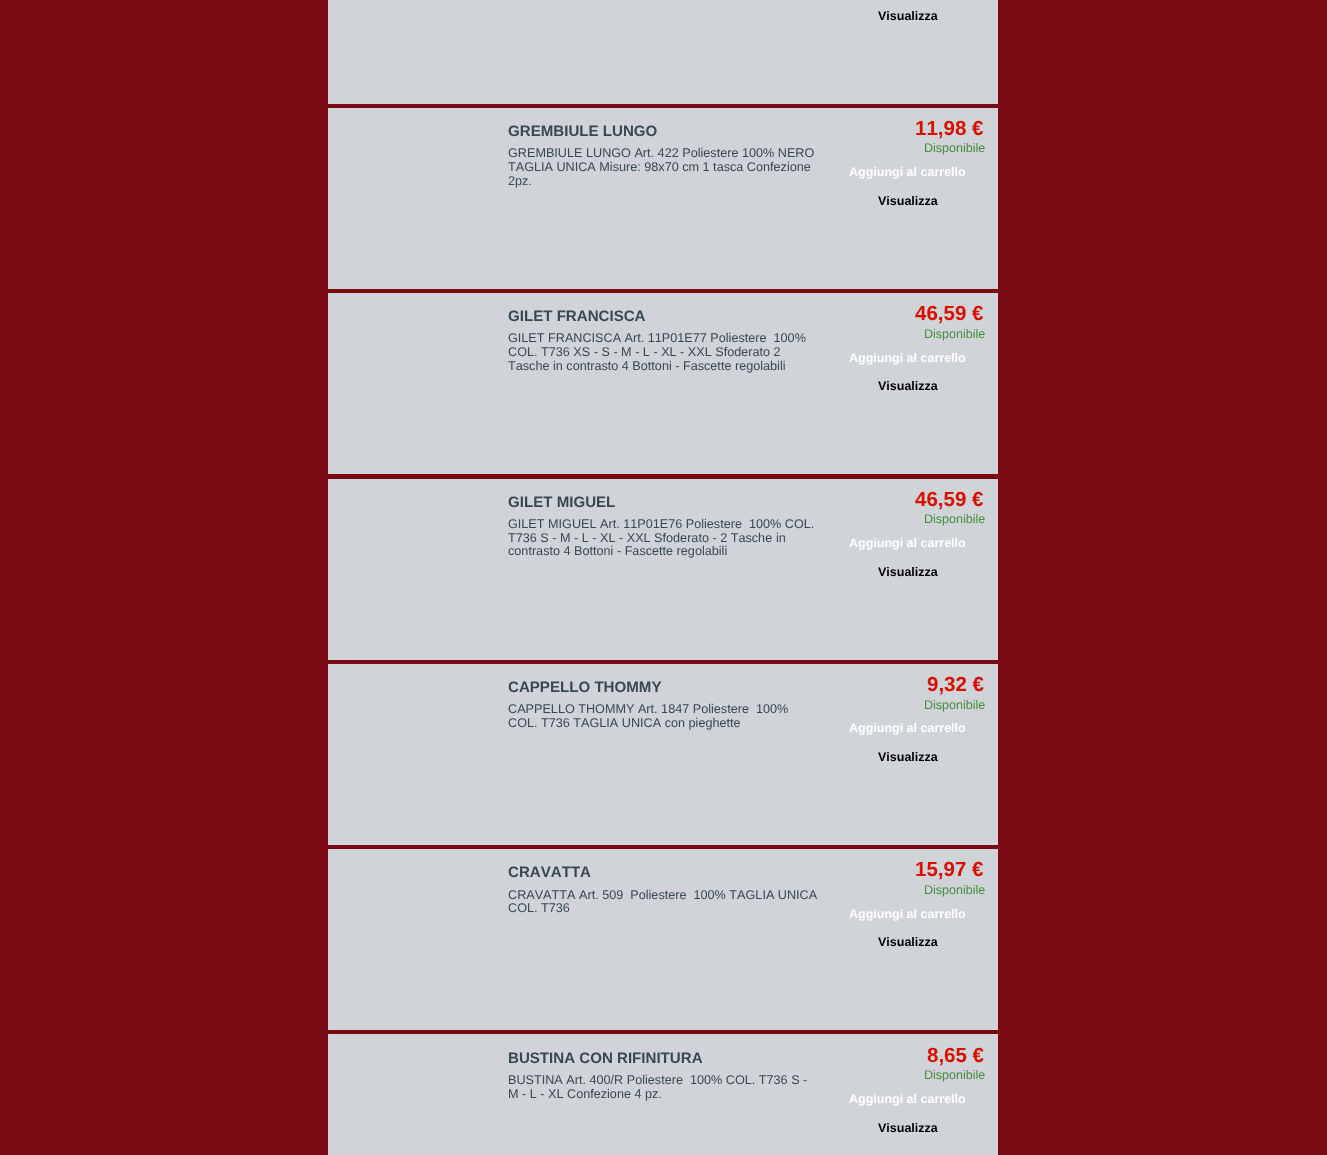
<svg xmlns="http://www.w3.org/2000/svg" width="1327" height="1155">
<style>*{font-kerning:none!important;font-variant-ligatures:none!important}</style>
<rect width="100%" height="100%" fill="#790a13"/>
<rect x="328" width="670" height="104" fill="#d0d3d8"/>
<text x="878" y="20" style="font-family:Liberation Sans;font-size:12.5px;font-weight:bold;fill:#000">Visualizza</text>
<rect x="328" y="108" width="670" height="181" fill="#d0d3d8"/>
<text x="508" y="136" style="font-family:Liberation Sans;font-size:15.1px;font-weight:bold;fill:#374853">GREMBIULE LUNGO</text>
<text x="508" y="157" style="font-family:Liberation Sans;font-size:12.65px;fill:#374853">GREMBIULE LUNGO Art. 422 Poliestere 100% NERO</text>
<text x="508" y="171" style="font-family:Liberation Sans;font-size:12.65px;fill:#374853">TAGLIA UNICA Misure: 98x70 cm 1 tasca Confezione</text>
<text x="508" y="185" style="font-family:Liberation Sans;font-size:12.65px;fill:#374853">2pz.</text>
<text x="915" y="135" style="font-family:Liberation Sans;font-size:20.5px;font-weight:bold;fill:#da0f00">11,98 €</text>
<text x="924" y="152" style="font-family:Liberation Sans;font-size:12.5px;fill:#488c40">Disponibile</text>
<text x="849" y="176" style="font-family:Liberation Sans;font-size:12.5px;font-weight:bold;fill:#fff">Aggiungi al carrello</text>
<text x="878" y="205" style="font-family:Liberation Sans;font-size:12.5px;font-weight:bold;fill:#000">Visualizza</text>
<rect x="328" y="293" width="670" height="181" fill="#d0d3d8"/>
<text x="508" y="321" style="font-family:Liberation Sans;font-size:15.1px;font-weight:bold;fill:#374853">GILET FRANCISCA</text>
<text x="508" y="342" style="font-family:Liberation Sans;font-size:12.65px;fill:#374853" xml:space="preserve">GILET FRANCISCA Art. 11P01E77 Poliestere  100%</text>
<text x="508" y="356" style="font-family:Liberation Sans;font-size:12.65px;fill:#374853">COL. T736 XS - S - M - L - XL - XXL Sfoderato 2</text>
<text x="508" y="370" style="font-family:Liberation Sans;font-size:12.65px;fill:#374853">Tasche in contrasto 4 Bottoni - Fascette regolabili</text>
<text x="915" y="320" style="font-family:Liberation Sans;font-size:20.5px;font-weight:bold;fill:#da0f00">46,59 €</text>
<text x="924" y="338" style="font-family:Liberation Sans;font-size:12.5px;fill:#488c40">Disponibile</text>
<text x="849" y="362" style="font-family:Liberation Sans;font-size:12.5px;font-weight:bold;fill:#fff">Aggiungi al carrello</text>
<text x="878" y="390" style="font-family:Liberation Sans;font-size:12.5px;font-weight:bold;fill:#000">Visualizza</text>
<rect x="328" y="479" width="670" height="181" fill="#d0d3d8"/>
<text x="508" y="507" style="font-family:Liberation Sans;font-size:15.1px;font-weight:bold;fill:#374853">GILET MIGUEL</text>
<text x="508" y="528" style="font-family:Liberation Sans;font-size:12.65px;fill:#374853" xml:space="preserve">GILET MIGUEL Art. 11P01E76 Poliestere  100% COL.</text>
<text x="508" y="542" style="font-family:Liberation Sans;font-size:12.65px;fill:#374853">T736 S - M - L - XL - XXL Sfoderato - 2 Tasche</text>
<text x="776" y="542" style="font-family:Liberation Sans;font-size:12.65px;fill:#374853">in</text>
<text x="508" y="555" style="font-family:Liberation Sans;font-size:12.65px;fill:#374853">contrasto 4 Bottoni - Fascette regolabili</text>
<text x="915" y="506" style="font-family:Liberation Sans;font-size:20.5px;font-weight:bold;fill:#da0f00">46,59 €</text>
<text x="924" y="523" style="font-family:Liberation Sans;font-size:12.5px;fill:#488c40">Disponibile</text>
<text x="849" y="547" style="font-family:Liberation Sans;font-size:12.5px;font-weight:bold;fill:#fff">Aggiungi al carrello</text>
<text x="878" y="576" style="font-family:Liberation Sans;font-size:12.5px;font-weight:bold;fill:#000">Visualizza</text>
<rect x="328" y="664" width="670" height="181" fill="#d0d3d8"/>
<text x="508" y="692" style="font-family:Liberation Sans;font-size:15.1px;font-weight:bold;fill:#374853">CAPPELLO THOMMY</text>
<text x="508" y="713" style="font-family:Liberation Sans;font-size:12.65px;fill:#374853" xml:space="preserve">CAPPELLO THOMMY Art. 1847 Poliestere  100%</text>
<text x="508" y="727" style="font-family:Liberation Sans;font-size:12.65px;fill:#374853">COL. T736 TAGLIA UNICA con pieghette</text>
<text x="927" y="691" style="font-family:Liberation Sans;font-size:20.5px;font-weight:bold;fill:#da0f00">9,32 €</text>
<text x="924" y="709" style="font-family:Liberation Sans;font-size:12.5px;fill:#488c40">Disponibile</text>
<text x="849" y="732" style="font-family:Liberation Sans;font-size:12.5px;font-weight:bold;fill:#fff">Aggiungi al carrello</text>
<text x="878" y="761" style="font-family:Liberation Sans;font-size:12.5px;font-weight:bold;fill:#000">Visualizza</text>
<rect x="328" y="849" width="670" height="181" fill="#d0d3d8"/>
<text x="508" y="877" style="font-family:Liberation Sans;font-size:15.1px;font-weight:bold;fill:#374853">CRAVATTA</text>
<text x="508" y="899" style="font-family:Liberation Sans;font-size:12.65px;fill:#374853">CRAVATTA</text>
<text x="579" y="899" style="font-family:Liberation Sans;font-size:12.65px;fill:#374853" xml:space="preserve">Art. 509  Poliestere  100% TAGLIA UNICA</text>
<text x="508" y="912" style="font-family:Liberation Sans;font-size:12.65px;fill:#374853">COL. T736</text>
<text x="915" y="876" style="font-family:Liberation Sans;font-size:20.5px;font-weight:bold;fill:#da0f00">15,97 €</text>
<text x="924" y="894" style="font-family:Liberation Sans;font-size:12.5px;fill:#488c40">Disponibile</text>
<text x="849" y="918" style="font-family:Liberation Sans;font-size:12.5px;font-weight:bold;fill:#fff">Aggiungi al carrello</text>
<text x="878" y="946" style="font-family:Liberation Sans;font-size:12.5px;font-weight:bold;fill:#000">Visualizza</text>
<rect x="328" y="1034" width="670" height="121" fill="#d0d3d8"/>
<text x="508" y="1063" style="font-family:Liberation Sans;font-size:15.1px;font-weight:bold;fill:#374853">BUSTINA CON RIFINITURA</text>
<text x="508" y="1084" style="font-family:Liberation Sans;font-size:12.65px;fill:#374853" xml:space="preserve">BUSTINA Art. 400/R Poliestere  100% COL. T736 S -</text>
<text x="508" y="1098" style="font-family:Liberation Sans;font-size:12.65px;fill:#374853">M - L - XL Confezione 4 pz.</text>
<text x="927" y="1062" style="font-family:Liberation Sans;font-size:20.5px;font-weight:bold;fill:#da0f00">8,65 €</text>
<text x="924" y="1079" style="font-family:Liberation Sans;font-size:12.5px;fill:#488c40">Disponibile</text>
<text x="849" y="1103" style="font-family:Liberation Sans;font-size:12.5px;font-weight:bold;fill:#fff">Aggiungi al carrello</text>
<text x="878" y="1132" style="font-family:Liberation Sans;font-size:12.5px;font-weight:bold;fill:#000">Visualizza</text>
</svg>
